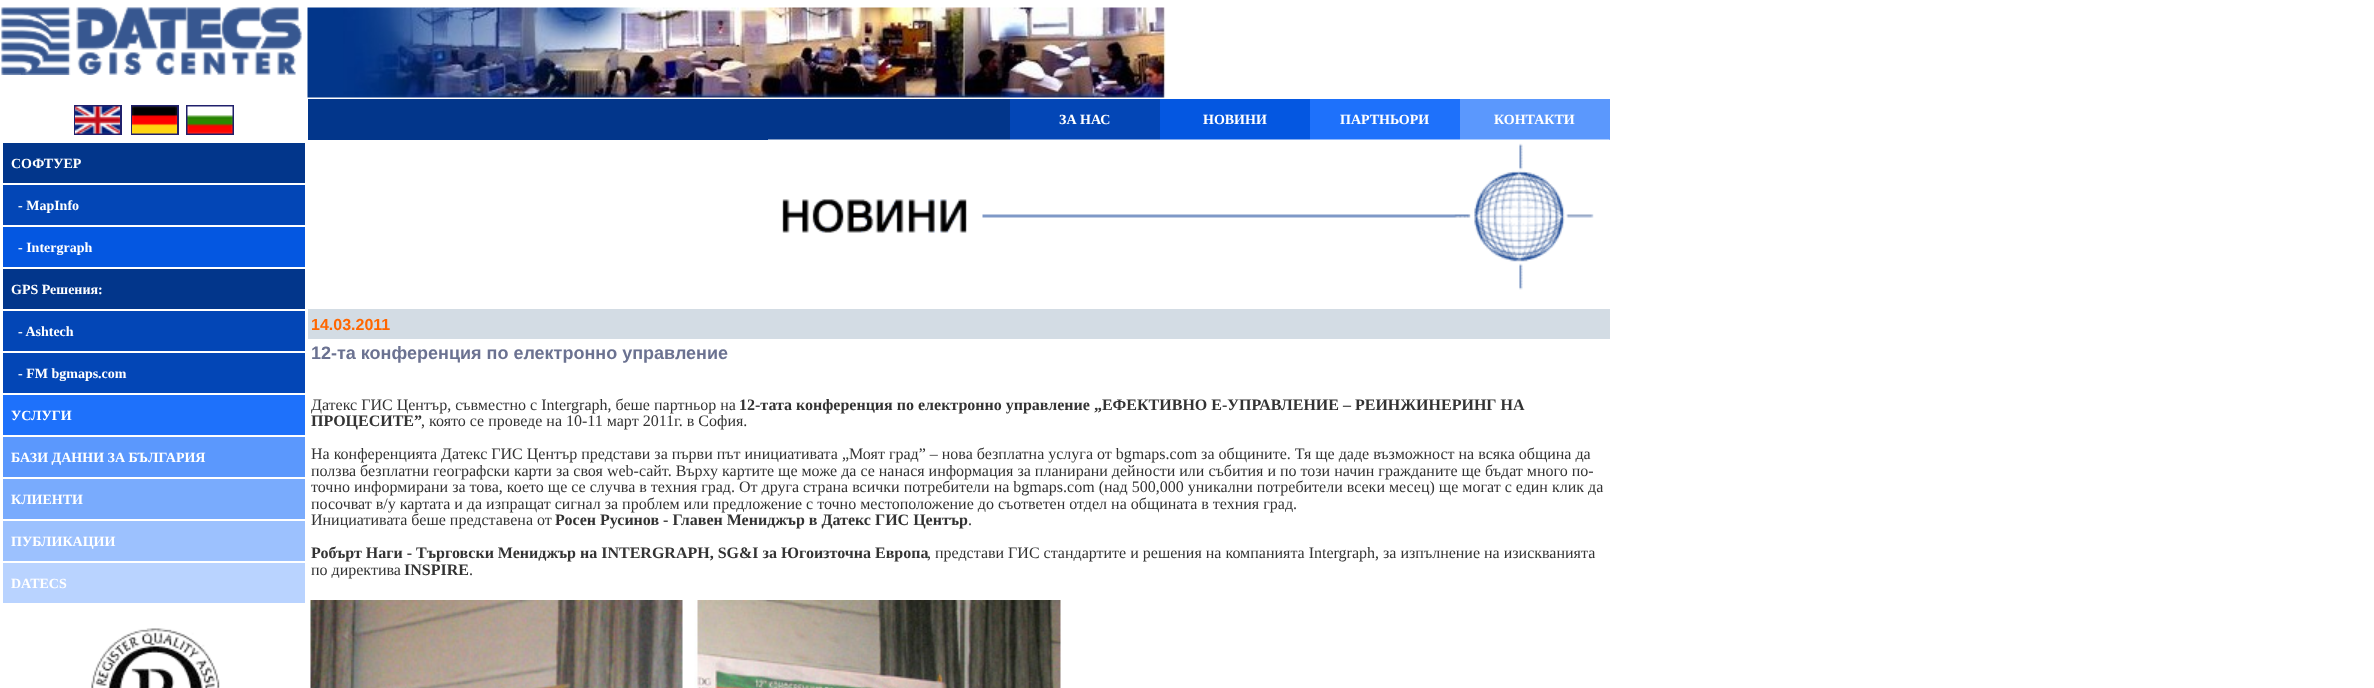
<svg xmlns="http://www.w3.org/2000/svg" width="2374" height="688">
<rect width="100%" height="100%" fill="#fff"/>
<image x="1" y="7" width="301" height="68" href="media/1.png"/>
<image x="307" y="7" width="859" height="91" href="media/2.png"/>
<rect x="75" y="106" width="46" height="28" fill="none" stroke="#20206c" stroke-width="2"/>
<rect x="132" y="106" width="46" height="28" fill="none" stroke="#20206c" stroke-width="2"/>
<rect x="187" y="106" width="46" height="28" fill="none" stroke="#20206c" stroke-width="2"/>
<image x="75" y="106" width="45" height="28" href="media/3.png"/>
<image x="132" y="106" width="45" height="28" href="media/4.png"/>
<image x="187" y="106" width="46" height="28" href="media/5.png"/>
<rect x="3" y="143" width="302" height="40" fill="#02368b"/>
<text x="11" y="168" style="font-family:Liberation Serif;font-size:14px;font-weight:bold;fill:#fff">СОФТУЕР</text>
<rect x="3" y="185" width="302" height="40" fill="#0346b6"/>
<text x="18" y="210" style="font-family:Liberation Serif;font-size:14px;font-weight:bold;fill:#fff">- MapInfo</text>
<rect x="3" y="227" width="302" height="40" fill="#0457e1"/>
<text x="18" y="252" style="font-family:Liberation Serif;font-size:14px;font-weight:bold;fill:#fff">- Intergraph</text>
<rect x="3" y="269" width="302" height="40" fill="#02368b"/>
<text x="11" y="294" style="font-family:Liberation Serif;font-size:14px;font-weight:bold;fill:#fff">GPS Решения:</text>
<rect x="3" y="311" width="302" height="40" fill="#0346b6"/>
<text x="18" y="336" style="font-family:Liberation Serif;font-size:14px;font-weight:bold;fill:#fff">- Ashtech</text>
<rect x="3" y="353" width="302" height="40" fill="#0346b6"/>
<text x="18" y="378" style="font-family:Liberation Serif;font-size:14px;font-weight:bold;fill:#fff">- FM bgmaps.com</text>
<rect x="3" y="395" width="302" height="40" fill="#1e71fb"/>
<text x="11" y="420" style="font-family:Liberation Serif;font-size:14px;font-weight:bold;fill:#fff">УСЛУГИ</text>
<rect x="3" y="437" width="302" height="40" fill="#5b98fd"/>
<text x="11" y="462" style="font-family:Liberation Serif;font-size:14px;font-weight:bold;fill:#fff">БАЗИ ДАННИ ЗА БЪЛГАРИЯ</text>
<rect x="3" y="479" width="302" height="40" fill="#79abfd"/>
<text x="11" y="504" style="font-family:Liberation Serif;font-size:14px;font-weight:bold;fill:#fff">КЛИЕНТИ</text>
<rect x="3" y="521" width="302" height="40" fill="#9cc1fe"/>
<text x="11" y="546" style="font-family:Liberation Serif;font-size:14px;font-weight:bold;fill:#fff">ПУБЛИКАЦИИ</text>
<rect x="3" y="563" width="302" height="40" fill="#b9d3ff"/>
<text x="11" y="588" style="font-family:Liberation Serif;font-size:14px;font-weight:bold;fill:#fff">DATECS</text>
<image x="91" y="628" width="129" height="60" href="media/6.png"/>
<rect x="308" y="99" width="702" height="41" fill="#02368b"/>
<rect x="1010" y="99" width="150" height="41" fill="#0346b6"/>
<text x="1059" y="124" style="font-family:Liberation Serif;font-size:14px;font-weight:bold;fill:#fff">ЗА НАС</text>
<rect x="1160" y="99" width="150" height="41" fill="#0457e1"/>
<text x="1203" y="124" style="font-family:Liberation Serif;font-size:14px;font-weight:bold;fill:#fff">НОВИНИ</text>
<rect x="1310" y="99" width="150" height="41" fill="#1e71fb"/>
<text x="1340" y="124" style="font-family:Liberation Serif;font-size:14px;font-weight:bold;fill:#fff">ПАРТНЬОРИ</text>
<rect x="1460" y="99" width="150" height="41" fill="#5b98fd"/>
<text x="1494" y="124" style="font-family:Liberation Serif;font-size:14px;font-weight:bold;fill:#fff">КОНТАКТИ</text>
<image x="768" y="139" width="842" height="151" href="media/7.png"/>
<rect x="308" y="309" width="1302" height="30" fill="#d3dce4"/>
<text x="311" y="330" style="font-family:Liberation Sans;font-size:16px;font-weight:bold;fill:#f60">14.03.2011</text>
<text x="311" y="359" style="font-family:Liberation Sans;font-size:18px;font-weight:bold;fill:#6b7291">12-та конференция по електронно управление</text>
<text x="311" y="410" style="font-family:Liberation Serif;font-size:16px;fill:#333">Датекс ГИС Център, съвместно с Intergraph, беше партньор на</text>
<text x="739" y="410" style="font-family:Liberation Serif;font-size:16px;font-weight:bold;fill:#333">12-тата конференция по електронно управление „ЕФЕКТИВНО Е-УПРАВЛЕНИЕ – РЕИНЖИНЕРИНГ НА</text>
<text x="311" y="426" style="font-family:Liberation Serif;font-size:16px;font-weight:bold;fill:#333">ПРОЦЕСИТЕ”</text>
<text x="421" y="426" style="font-family:Liberation Serif;font-size:16px;fill:#333">, която се проведе на 10-11 март 2011г. в София.</text>
<text x="311" y="459" style="font-family:Liberation Serif;font-size:16px;fill:#333">На конференцията Датекс ГИС Център представи за първи път инициативата „Моят град” – нова безплатна услуга от bgmaps.com за общините. Тя ще даде възможност на всяка община да</text>
<text x="311" y="476" style="font-family:Liberation Serif;font-size:16px;fill:#333">ползва безплатни географски карти за своя web-сайт. Върху картите ще може да се нанася информация за планирани дейности или събития и по този начин гражданите ще бъдат много по-</text>
<text x="311" y="492" style="font-family:Liberation Serif;font-size:16px;fill:#333">точно информирани за това, което ще се случва в техния град. От друга страна всички потребители на bgmaps.com (над 500,000 уникални потребители всеки месец) ще могат с един клик да</text>
<text x="311" y="509" style="font-family:Liberation Serif;font-size:16px;fill:#333">посочват в/у картата и да изпращат сигнал за проблем или предложение с точно местоположение до съответен отдел на общината в техния град.</text>
<text x="311" y="525" style="font-family:Liberation Serif;font-size:16px;fill:#333">Инициативата беше представена от</text>
<text x="555" y="525" style="font-family:Liberation Serif;font-size:16px;font-weight:bold;fill:#333">Росен Русинов - Главен Мениджър в Датекс ГИС Център</text>
<text x="968" y="525" style="font-family:Liberation Serif;font-size:16px;fill:#333">.</text>
<text x="311" y="558" style="font-family:Liberation Serif;font-size:16px;font-weight:bold;fill:#333">Робърт Наги - Търговски Мениджър на INTERGRAPH, SG&amp;I за Югоизточна Европа</text>
<text x="927" y="558" style="font-family:Liberation Serif;font-size:16px;fill:#333">, представи ГИС стандартите и решения на компанията Intergraph, за изпълнение на изискванията</text>
<text x="311" y="575" style="font-family:Liberation Serif;font-size:16px;fill:#333">по директива</text>
<text x="404" y="575" style="font-family:Liberation Serif;font-size:16px;font-weight:bold;fill:#333">INSPIRE</text>
<text x="469" y="575" style="font-family:Liberation Serif;font-size:16px;fill:#333">.</text>
<image x="310" y="600" width="751" height="88" href="media/8.png"/>
</svg>
